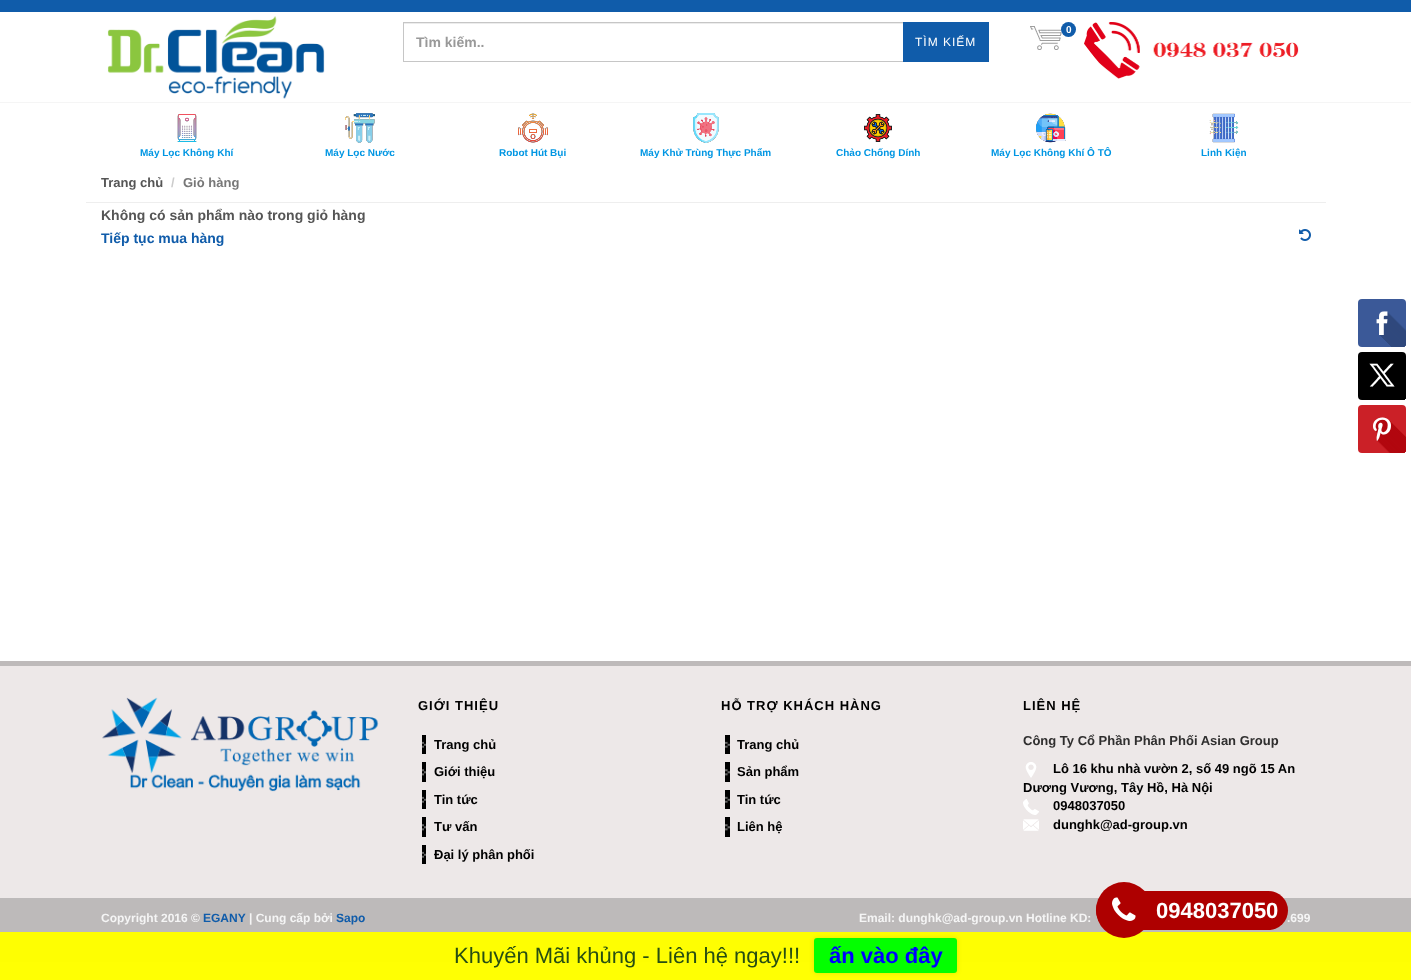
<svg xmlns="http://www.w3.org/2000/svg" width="1411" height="980">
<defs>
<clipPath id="clip1"><path d="M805 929h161v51h-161zm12 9h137c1.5 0 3 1.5 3 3v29c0 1.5-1.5 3-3 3h-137c-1.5 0-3-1.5-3-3v-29c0-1.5 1.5-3 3-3z" clip-rule="evenodd"/></clipPath>
</defs>
<rect width="100%" height="100%" fill="#fff"/>
<rect y="962" width="1411" height="18" fill="#ffff03"/>
<rect width="1411" height="12" fill="#105caa"/>
<rect y="102" width="1411" height="1" fill="#f5f5f5"/>
<image x="107" y="16" width="218" height="83" href="media/1.png"/>
<image x="1030" y="26" width="32" height="24" href="media/2.png"/>
<circle cx="1068.5" cy="29.5" r="7.5" fill="#105caa"/>
<text x="1066" y="33" style="font-family:Liberation Sans;font-size:10px;font-weight:bold;fill:#fff">0</text>
<image x="1084" y="22" width="215" height="57" href="media/3.png"/>
<rect x="404" y="23" width="503" height="1" fill="#ececec"/>
<rect x="403" y="22" width="504" height="1" fill="#c6c6c6"/>
<rect x="403" y="61" width="504" height="1" fill="#c6c6c6"/>
<rect x="403" y="22" width="1" height="40" fill="#c6c6c6"/>
<text x="416" y="47" style="font-family:Liberation Sans;font-size:14px;font-weight:bold;fill:#999">Tìm kiếm..</text>
<rect x="903" y="22" width="86" height="40" fill="#105caa"/>
<text x="915" y="46" style="font-family:Liberation Sans;font-size:12px;letter-spacing:1px;fill:#fff">TÌM KIẾM</text>
<image x="177" y="114" width="20" height="28" href="media/4.png"/>
<text x="140" y="156" style="font-family:Liberation Sans;font-size:10px;font-weight:bold;fill:#0096e3">Máy Lọc Không Khí</text>
<image x="345" y="113" width="30" height="30" href="media/5.png"/>
<text x="325" y="156" style="font-family:Liberation Sans;font-size:10px;font-weight:bold;fill:#0096e3">Máy Lọc Nước</text>
<image x="518" y="113" width="30" height="30" href="media/6.png"/>
<text x="499" y="156" style="font-family:Liberation Sans;font-size:10px;font-weight:bold;fill:#0096e3">Robot Hút Bụi</text>
<image x="693" y="113" width="26" height="30" href="media/7.png"/>
<text x="640" y="156" style="font-family:Liberation Sans;font-size:10px;font-weight:bold;fill:#0096e3">Máy Khử Trùng Thực Phẩm</text>
<image x="864" y="114" width="28" height="28" href="media/8.png"/>
<text x="836" y="156" style="font-family:Liberation Sans;font-size:10px;font-weight:bold;fill:#0096e3">Chảo Chống Dính</text>
<image x="1036" y="113" width="30" height="30" href="media/9.png"/>
<text x="991" y="156" style="font-family:Liberation Sans;font-size:10px;font-weight:bold;fill:#0096e3">Máy Lọc Không Khí Ô TÔ</text>
<image x="1209" y="113" width="30" height="30" href="media/10.png"/>
<text x="1201" y="156" style="font-family:Liberation Sans;font-size:10px;font-weight:bold;fill:#0096e3">Linh Kiện</text>
<rect x="86" y="202" width="1240" height="1" fill="#eee"/>
<text x="101" y="187" style="font-family:Liberation Sans;font-size:13px;font-weight:bold;fill:#555">Trang chủ</text>
<text x="171" y="187" style="font-family:Liberation Sans;font-size:13px;font-weight:bold;fill:#ccc">/</text>
<text x="183" y="187" style="font-family:Liberation Sans;font-size:13px;font-weight:bold;fill:#777">Giỏ hàng</text>
<text x="101" y="220" style="font-family:Liberation Sans;font-size:14px;font-weight:bold;fill:#555">Không có sản phẩm nào trong giỏ hàng</text>
<text x="101" y="243" style="font-family:Liberation Sans;font-size:14px;font-weight:bold;fill:#105caa">Tiếp tục mua hàng</text>
<image x="1299" y="229" width="12" height="12" href="media/11.png"/>
<rect y="666" width="1411" height="232" fill="#ede8e8"/>
<rect y="661" width="1411" height="5" fill="#bebaba"/>
<image x="102" y="697" width="277" height="95" href="media/12.png"/>
<text x="418" y="710" style="font-family:Liberation Sans;font-size:13px;font-weight:bold;letter-spacing:1px;fill:#000">GIỚI THIỆU</text>
<image x="422" y="735" width="4" height="19" href="media/13.png"/>
<text x="434" y="749" style="font-family:Liberation Sans;font-size:13px;font-weight:bold;fill:#000">Trang chủ</text>
<image x="422" y="762" width="4" height="20" href="media/14.png"/>
<text x="434" y="776" style="font-family:Liberation Sans;font-size:13px;font-weight:bold;fill:#000">Giới thiệu</text>
<image x="422" y="790" width="4" height="19" href="media/13.png"/>
<text x="434" y="804" style="font-family:Liberation Sans;font-size:13px;font-weight:bold;fill:#000">Tin tức</text>
<image x="422" y="817" width="4" height="20" href="media/14.png"/>
<text x="434" y="831" style="font-family:Liberation Sans;font-size:13px;font-weight:bold;fill:#000">Tư vấn</text>
<image x="422" y="845" width="4" height="19" href="media/13.png"/>
<text x="434" y="859" style="font-family:Liberation Sans;font-size:13px;font-weight:bold;fill:#000">Đại lý phân phối</text>
<text x="721" y="710" style="font-family:Liberation Sans;font-size:13px;font-weight:bold;letter-spacing:1px;fill:#000">HỖ TRỢ KHÁCH HÀNG</text>
<image x="725" y="735" width="5" height="19" href="media/15.png"/>
<text x="737" y="749" style="font-family:Liberation Sans;font-size:13px;font-weight:bold;fill:#000">Trang chủ</text>
<image x="725" y="762" width="5" height="20" href="media/16.png"/>
<text x="737" y="776" style="font-family:Liberation Sans;font-size:13px;font-weight:bold;fill:#000">Sản phẩm</text>
<image x="725" y="790" width="5" height="19" href="media/15.png"/>
<text x="737" y="804" style="font-family:Liberation Sans;font-size:13px;font-weight:bold;fill:#000">Tin tức</text>
<image x="725" y="817" width="5" height="20" href="media/16.png"/>
<text x="737" y="831" style="font-family:Liberation Sans;font-size:13px;font-weight:bold;fill:#000">Liên hệ</text>
<text x="1023" y="710" style="font-family:Liberation Sans;font-size:13px;font-weight:bold;letter-spacing:1px;fill:#000">LIÊN HỆ</text>
<text x="1023" y="745" style="font-family:Liberation Sans;font-size:13px;font-weight:bold;fill:#2f2e2e">Công Ty Cổ Phần Phân Phối Asian Group</text>
<image x="1025" y="762" width="12" height="16" href="media/17.png"/>
<text x="1053" y="773" style="font-family:Liberation Sans;font-size:13px;font-weight:bold;fill:#000">Lô 16 khu nhà vườn 2, số 49 ngõ 15 An</text>
<text x="1023" y="792" style="font-family:Liberation Sans;font-size:13px;font-weight:bold;fill:#000">Dương Vương, Tây Hồ, Hà Nội</text>
<image x="1023" y="799" width="16" height="16" href="media/18.png"/>
<text x="1053" y="810" style="font-family:Liberation Sans;font-size:13px;font-weight:bold;fill:#000">0948037050</text>
<image x="1023" y="819" width="16" height="12" href="media/19.png"/>
<text x="1053" y="829" style="font-family:Liberation Sans;font-size:13px;font-weight:bold;fill:#000">dunghk@ad-group.vn</text>
<rect y="898" width="1411" height="34" fill="#bdbaba"/>
<rect y="932" width="1411" height="30" fill="#fefe02"/>
<text x="101" y="922" style="font-family:Liberation Sans;font-size:12px;font-weight:bold;fill:#f5f5f5">Copyright 2016 ©</text>
<text x="203" y="922" style="font-family:Liberation Sans;font-size:12px;font-weight:bold;fill:#105caa">EGANY</text>
<text x="249" y="922" style="font-family:Liberation Sans;font-size:12px;font-weight:bold;fill:#f5f5f5">| Cung cấp bởi</text>
<text x="336" y="922" style="font-family:Liberation Sans;font-size:12px;font-weight:bold;fill:#105caa">Sapo</text>
<text x="859" y="922" style="font-family:Liberation Sans;font-size:12px;font-weight:bold;fill:#f5f5f5">Email: dunghk@ad-group.vn Hotline KD:</text>
<text x="1287" y="922" style="font-family:Liberation Sans;font-size:12px;font-weight:bold;fill:#f5f5f5">.699</text>
<image x="1358" y="299" width="48" height="154" href="media/20.png"/>
<rect x="1096" y="891" width="192" height="39" rx="19.5" fill="#ae0000"/>
<circle cx="1124" cy="910" r="28" fill="#ae0000"/>
<image x="1112" y="897" width="24" height="24" href="media/21.png"/>
<text x="1156" y="918" style="font-family:Liberation Sans;font-size:22px;font-weight:bold;fill:#fff">0948037050</text>
<text x="454" y="963" style="font-family:Liberation Sans;font-size:22px;fill:#274e13">Khuyến Mãi khủng - Liên hệ ngay!!!</text>
<g clip-path="url(#clip1)">
<rect x="814" y="938" width="143" height="35" rx="3" fill="#0000001a" filter="blur(2.5px)"/>
</g>
<rect x="814" y="938" width="143" height="35" rx="3" fill="#00ff00fc"/>
<text x="829" y="963" style="font-family:Liberation Sans;font-size:22px;font-weight:bold;fill:#00f">ấn vào đây</text>
</svg>
